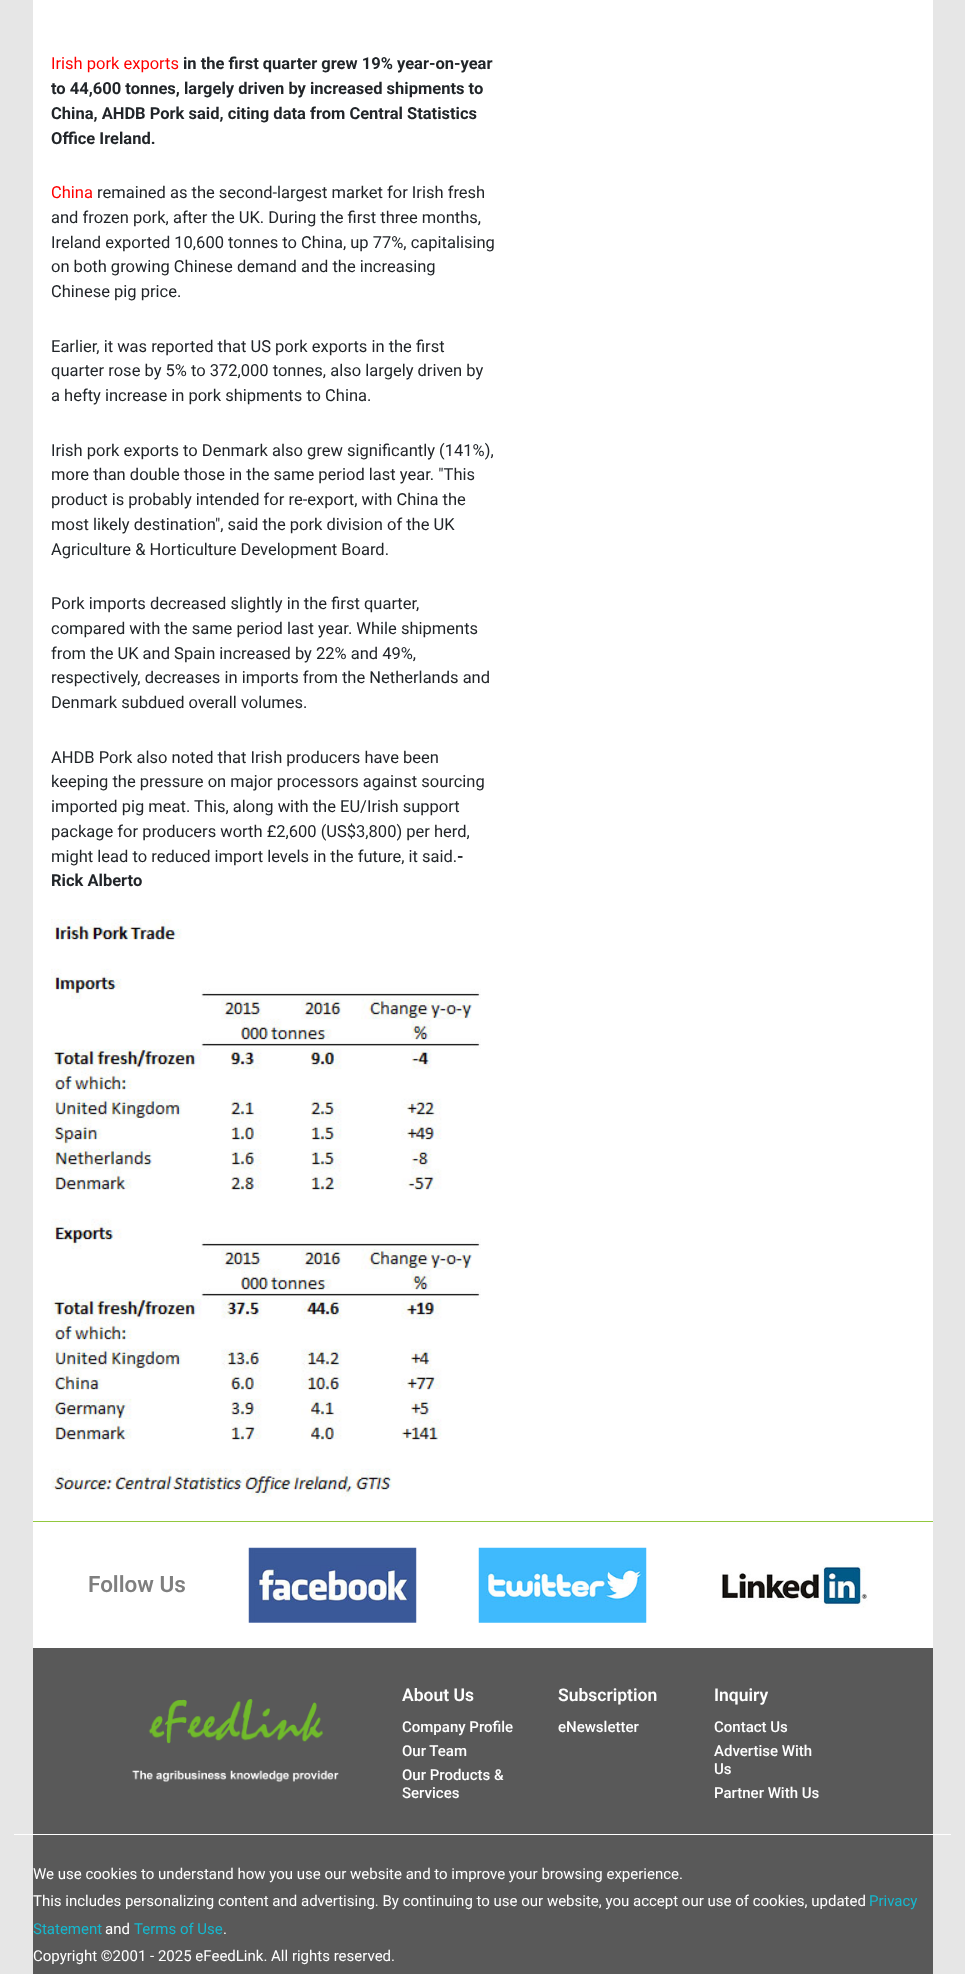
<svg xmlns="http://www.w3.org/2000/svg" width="965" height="1974">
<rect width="100%" height="100%" fill="#e6e6e6"/>
<rect x="33" width="900" height="1648" fill="#fff"/>
<rect x="33" y="1521" width="900" height="1" fill="#92c83e"/>
<text x="51" y="69" style="font-family:Roboto;font-size:16.5px;fill:#f00">Irish pork exports</text>
<text x="183" y="69" style="font-family:Roboto;font-size:16.5px;font-weight:bold;fill:#212529">in the first quarter grew 19% year-on-year</text>
<text x="51" y="94" style="font-family:Roboto;font-size:16.5px;font-weight:bold;fill:#212529">to 44,600 tonnes, largely driven by increased shipments to</text>
<text x="51" y="119" style="font-family:Roboto;font-size:16.5px;font-weight:bold;fill:#212529">China, AHDB Pork said, citing data from Central Statistics</text>
<text x="51" y="144" style="font-family:Roboto;font-size:16.5px;font-weight:bold;fill:#212529">Office Ireland.</text>
<text x="51" y="198" style="font-family:Roboto;font-size:16.5px;fill:#f00">China</text>
<text x="97" y="198" style="font-family:Roboto;font-size:16.5px;fill:#212529">remained as the second-largest market for Irish fresh</text>
<text x="51" y="223" style="font-family:Roboto;font-size:16.5px;fill:#212529">and frozen pork, after the UK. During the first three months,</text>
<text x="51" y="248" style="font-family:Roboto;font-size:16.5px;fill:#212529">Ireland exported 10,600 tonnes to China, up 77%, capitalising</text>
<text x="51" y="272" style="font-family:Roboto;font-size:16.5px;fill:#212529">on both growing Chinese demand and the increasing</text>
<text x="51" y="297" style="font-family:Roboto;font-size:16.5px;fill:#212529">Chinese pig price.</text>
<text x="51" y="352" style="font-family:Roboto;font-size:16.5px;fill:#212529">Earlier, it was reported that US pork exports in the first</text>
<text x="51" y="376" style="font-family:Roboto;font-size:16.5px;fill:#212529">quarter rose by 5% to 372,000 tonnes, also largely driven by</text>
<text x="51" y="401" style="font-family:Roboto;font-size:16.5px;fill:#212529">a hefty increase in pork shipments to China.</text>
<text x="51" y="456" style="font-family:Roboto;font-size:16.5px;fill:#212529">Irish pork exports to Denmark also grew significantly (141%),</text>
<text x="51" y="480" style="font-family:Roboto;font-size:16.5px;fill:#212529">more than double those in the same period last year. "This</text>
<text x="51" y="505" style="font-family:Roboto;font-size:16.5px;fill:#212529">product is probably intended for re-export, with China the</text>
<text x="51" y="530" style="font-family:Roboto;font-size:16.5px;fill:#212529">most likely destination", said the pork division of the UK</text>
<text x="51" y="555" style="font-family:Roboto;font-size:16.5px;fill:#212529">Agriculture &amp; Horticulture Development Board.</text>
<text x="51" y="609" style="font-family:Roboto;font-size:16.5px;fill:#212529">Pork imports decreased slightly in the first quarter,</text>
<text x="51" y="634" style="font-family:Roboto;font-size:16.5px;fill:#212529">compared with the same period last year. While shipments</text>
<text x="51" y="659" style="font-family:Roboto;font-size:16.5px;fill:#212529">from the UK and Spain increased by 22% and 49%,</text>
<text x="51" y="683" style="font-family:Roboto;font-size:16.5px;fill:#212529">respectively, decreases in imports from the Netherlands and</text>
<text x="51" y="708" style="font-family:Roboto;font-size:16.5px;fill:#212529">Denmark subdued overall volumes.</text>
<text x="51" y="763" style="font-family:Roboto;font-size:16.5px;fill:#212529">AHDB Pork also noted that Irish producers have been</text>
<text x="51" y="787" style="font-family:Roboto;font-size:16.5px;fill:#212529">keeping the pressure on major processors against sourcing</text>
<text x="51" y="812" style="font-family:Roboto;font-size:16.5px;fill:#212529">imported pig meat. This, along with the EU/Irish support</text>
<text x="51" y="837" style="font-family:Roboto;font-size:16.5px;fill:#212529">package for producers worth £2,600 (US$3,800) per herd,</text>
<text x="51" y="862" style="font-family:Roboto;font-size:16.5px;fill:#212529">might lead to reduced import levels in the future, it said.</text>
<text x="457" y="862" style="font-family:Roboto;font-size:16.5px;font-weight:bold;fill:#212529">-</text>
<text x="51" y="886" style="font-family:Roboto;font-size:16.5px;font-weight:bold;fill:#212529">Rick Alberto</text>
<image x="51" y="919" width="430" height="578" href="media/1.png"/>
<text x="88" y="1592" style="font-family:Roboto;font-size:22.5px;font-weight:600;fill:#7f7f7f">Follow Us</text>
<image x="248" y="1547" width="169" height="76" href="media/2.png"/>
<image x="478" y="1547" width="169" height="76" href="media/3.png"/>
<image x="721" y="1566" width="147" height="42" href="media/4.png"/>
<rect x="33" y="1648" width="900" height="326" fill="#595959"/>
<image x="132" y="1699" width="207" height="83" href="media/5.png"/>
<text x="402" y="1701" style="font-family:Roboto;font-size:17.5px;font-weight:600;fill:#fff">About Us</text>
<text x="402" y="1732" style="font-family:Roboto;font-size:15px;font-weight:500;fill:#fff">Company Profile</text>
<text x="402" y="1756" style="font-family:Roboto;font-size:15px;font-weight:500;fill:#fff">Our Team</text>
<text x="402" y="1780" style="font-family:Roboto;font-size:15px;font-weight:500;fill:#fff">Our Products &amp;</text>
<text x="402" y="1798" style="font-family:Roboto;font-size:15px;font-weight:500;fill:#fff">Services</text>
<text x="558" y="1701" style="font-family:Roboto;font-size:17.5px;font-weight:600;fill:#fff">Subscription</text>
<text x="558" y="1732" style="font-family:Roboto;font-size:15px;font-weight:500;fill:#fff">eNewsletter</text>
<text x="714" y="1701" style="font-family:Roboto;font-size:17.5px;font-weight:600;fill:#fff">Inquiry</text>
<text x="714" y="1732" style="font-family:Roboto;font-size:15px;font-weight:500;fill:#fff">Contact Us</text>
<text x="714" y="1756" style="font-family:Roboto;font-size:15px;font-weight:500;fill:#fff">Advertise With</text>
<text x="714" y="1774" style="font-family:Roboto;font-size:15px;font-weight:500;fill:#fff">Us</text>
<text x="714" y="1798" style="font-family:Roboto;font-size:15px;font-weight:500;fill:#fff">Partner With Us</text>
<rect x="14" y="1834" width="937" height="1" fill="#fff"/>
<text x="33" y="1879" style="font-family:Roboto;font-size:15px;fill:#fff">We use cookies to understand how you use our website and to improve your browsing experience.</text>
<text x="33" y="1906" style="font-family:Roboto;font-size:15px;fill:#fff">This includes personalizing content and advertising. By continuing to use our website, you accept our use of cookies, updated</text>
<text x="869" y="1906" style="font-family:Roboto;font-size:15px;fill:#15b8cf">Privacy</text>
<text x="33" y="1934" style="font-family:Roboto;font-size:15px;fill:#15b8cf">Statement</text>
<text x="105" y="1934" style="font-family:Roboto;font-size:15px;fill:#fff">and</text>
<text x="134" y="1934" style="font-family:Roboto;font-size:15px;fill:#15b8cf">Terms of Use</text>
<text x="223" y="1934" style="font-family:Roboto;font-size:15px;fill:#fff">.</text>
<text x="33" y="1961" style="font-family:Roboto;font-size:15px;fill:#fff">Copyright ©2001 - 2025 eFeedLink. All rights reserved.</text>
</svg>
